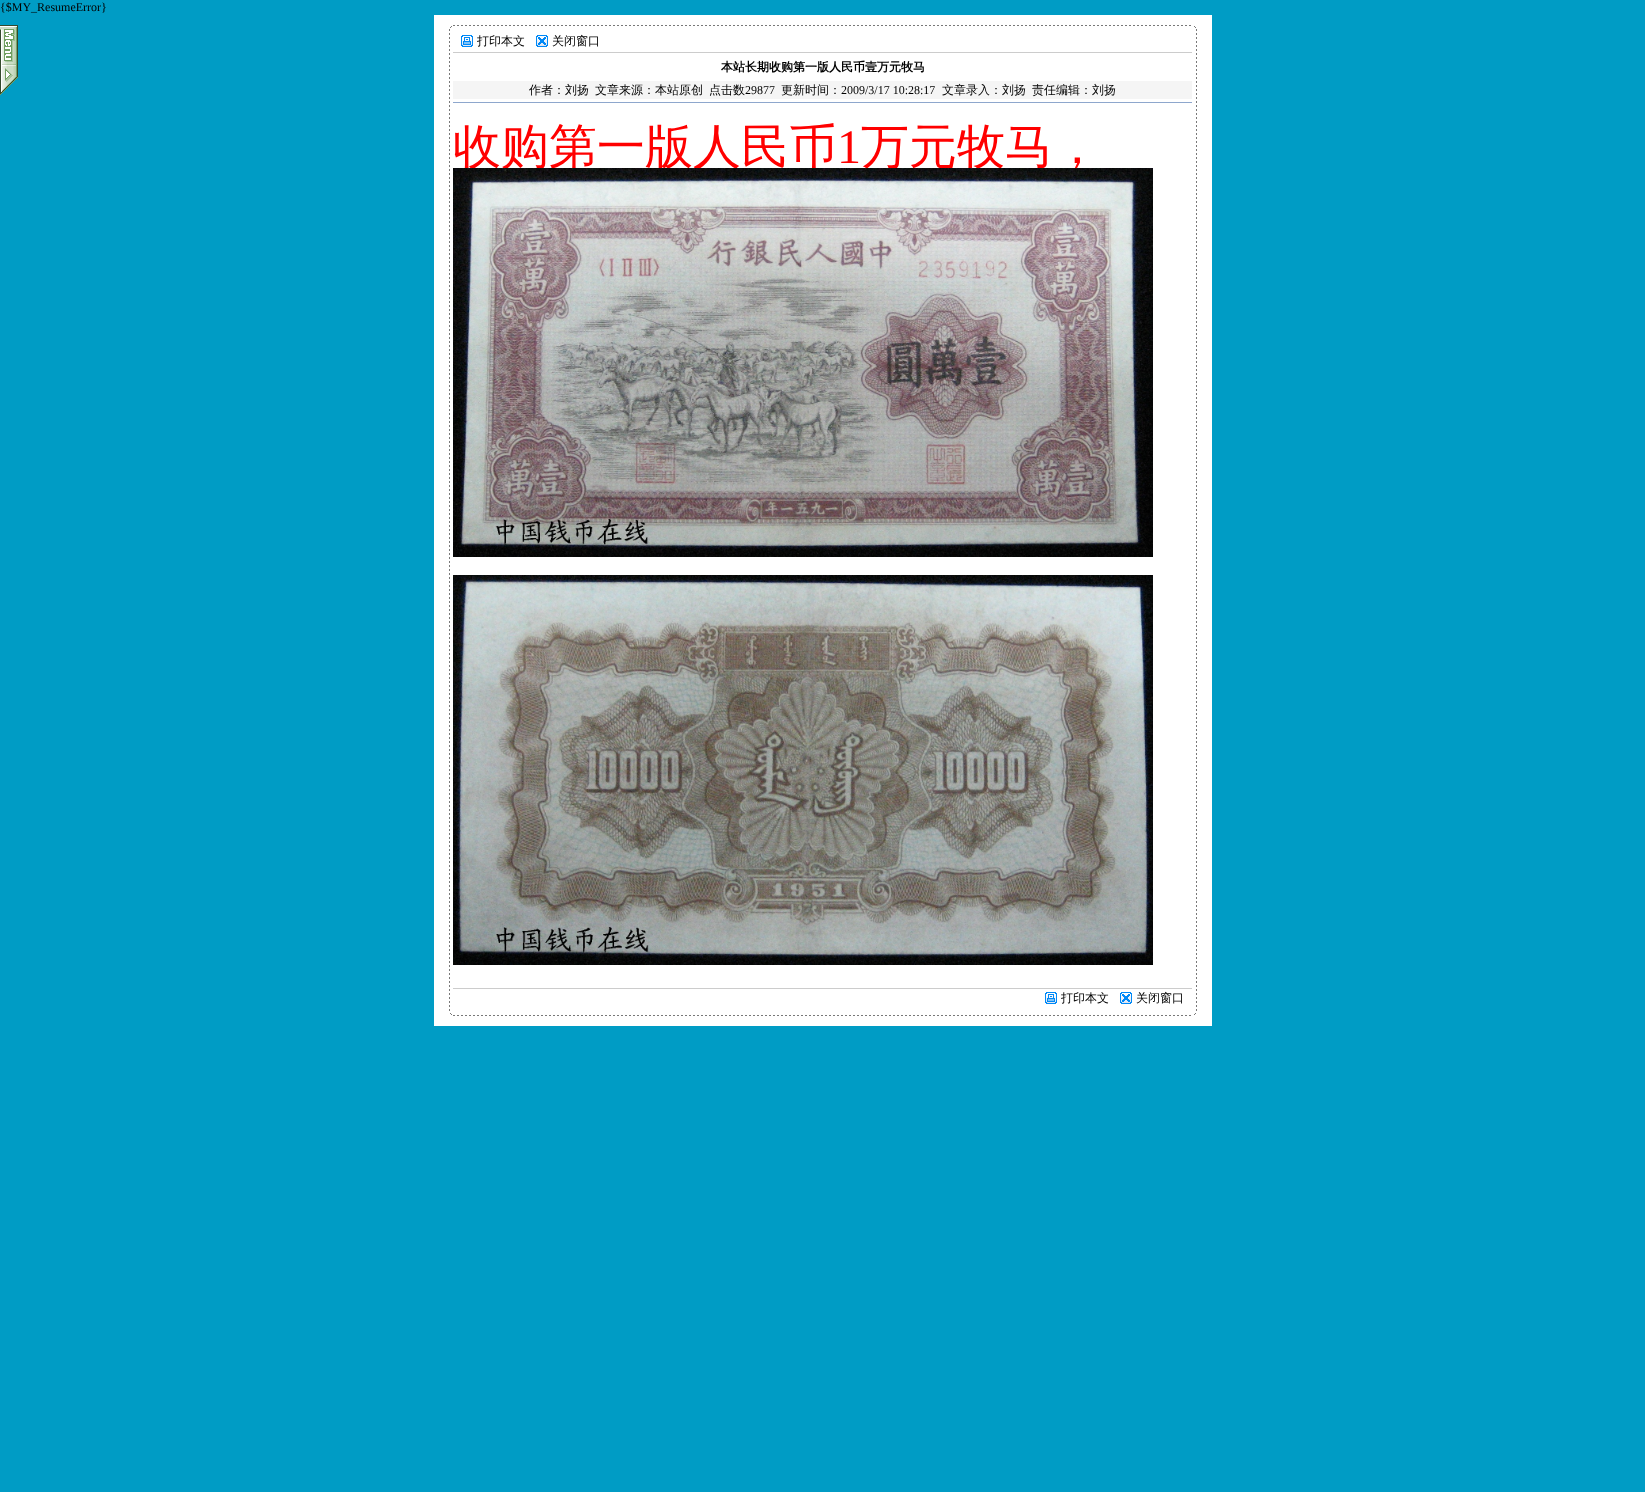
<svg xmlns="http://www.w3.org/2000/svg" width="1645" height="1492">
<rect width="100%" height="100%" fill="#009cc5"/>
<text x="0" y="11" style="font-family:Liberation Serif;font-size:12px;fill:#000">{$MY_ResumeError}</text>
<image x="0" y="25" width="18" height="70" href="media/1.png"/>
<rect x="434" y="15" width="778" height="1011" fill="#fff"/>
<image x="453" y="25" width="738" height="1" href="media/2.png"/>
<image x="450" y="26" width="2" height="2" href="media/3.png"/>
<image x="1194" y="26" width="2" height="2" href="media/4.png"/>
<image x="449" y="29" width="1" height="982" href="media/5.png"/>
<image x="461" y="35" width="12" height="12" href="media/6.png"/>
<text x="477" y="45" style="font-family:WenQuanYi Zen Hei;font-size:12px;font-weight:500;fill:#000">打印本文</text>
<image x="536" y="35" width="12" height="12" href="media/7.png"/>
<text x="552" y="45" style="font-family:WenQuanYi Zen Hei;font-size:12px;font-weight:500;fill:#000">关闭窗口</text>
<rect x="453" y="52" width="739" height="1" fill="#ccc"/>
<text x="721" y="71" style="font-family:WenQuanYi Zen Hei;font-size:12px;font-weight:bold;fill:#000">本站长期收购第一版人民币壹万元牧马</text>
<rect x="453" y="81" width="739" height="18" fill="#f5f5f5"/>
<text x="529" y="94" style="font-family:WenQuanYi Zen Hei;font-size:12px;font-weight:500;fill:#000">作者：刘扬</text>
<text x="595" y="94" style="font-family:WenQuanYi Zen Hei;font-size:12px;font-weight:500;fill:#000">文章来源：本站原创</text>
<text x="709" y="94" style="font-family:WenQuanYi Zen Hei;font-size:12px;font-weight:500;fill:#000">点击数</text>
<text x="745" y="94" style="font-family:Liberation Serif;font-size:12px;fill:#000">29877</text>
<text x="781" y="94" style="font-family:WenQuanYi Zen Hei;font-size:12px;font-weight:500;fill:#000">更新时间：</text>
<text x="841" y="94" style="font-family:Liberation Serif;font-size:12px;fill:#000">2009/3/17 10:28:17</text>
<text x="942" y="94" style="font-family:WenQuanYi Zen Hei;font-size:12px;font-weight:500;fill:#000">文章录入：刘扬</text>
<text x="1032" y="94" style="font-family:WenQuanYi Zen Hei;font-size:12px;font-weight:500;fill:#000">责任编辑：刘扬</text>
<rect x="453" y="102" width="739" height="1" fill="#8ea7cd"/>
<text x="453" y="163" style="font-family:WenQuanYi Zen Hei;font-size:48px;font-weight:500;fill:#f00">收购第一版人民币</text>
<text x="837" y="163" style="font-family:Liberation Serif;font-size:48px;fill:#f00">1</text>
<text x="861" y="163" style="font-family:WenQuanYi Zen Hei;font-size:48px;font-weight:500;fill:#f00">万元牧马，</text>
<image x="453" y="168" width="700" height="389" href="media/8.png"/>
<image x="453" y="575" width="700" height="390" href="media/9.png"/>
<rect x="453" y="988" width="739" height="1" fill="#ccc"/>
<image x="1045" y="992" width="12" height="12" href="media/6.png"/>
<text x="1061" y="1002" style="font-family:WenQuanYi Zen Hei;font-size:12px;font-weight:500;fill:#000">打印本文</text>
<image x="1120" y="992" width="12" height="12" href="media/7.png"/>
<text x="1136" y="1002" style="font-family:WenQuanYi Zen Hei;font-size:12px;font-weight:500;fill:#000">关闭窗口</text>
<image x="1196" y="29" width="1" height="982" href="media/5.png"/>
<image x="450" y="1013" width="2" height="2" href="media/4.png"/>
<image x="1194" y="1013" width="2" height="2" href="media/3.png"/>
<image x="453" y="1015" width="738" height="1" href="media/2.png"/>
</svg>
